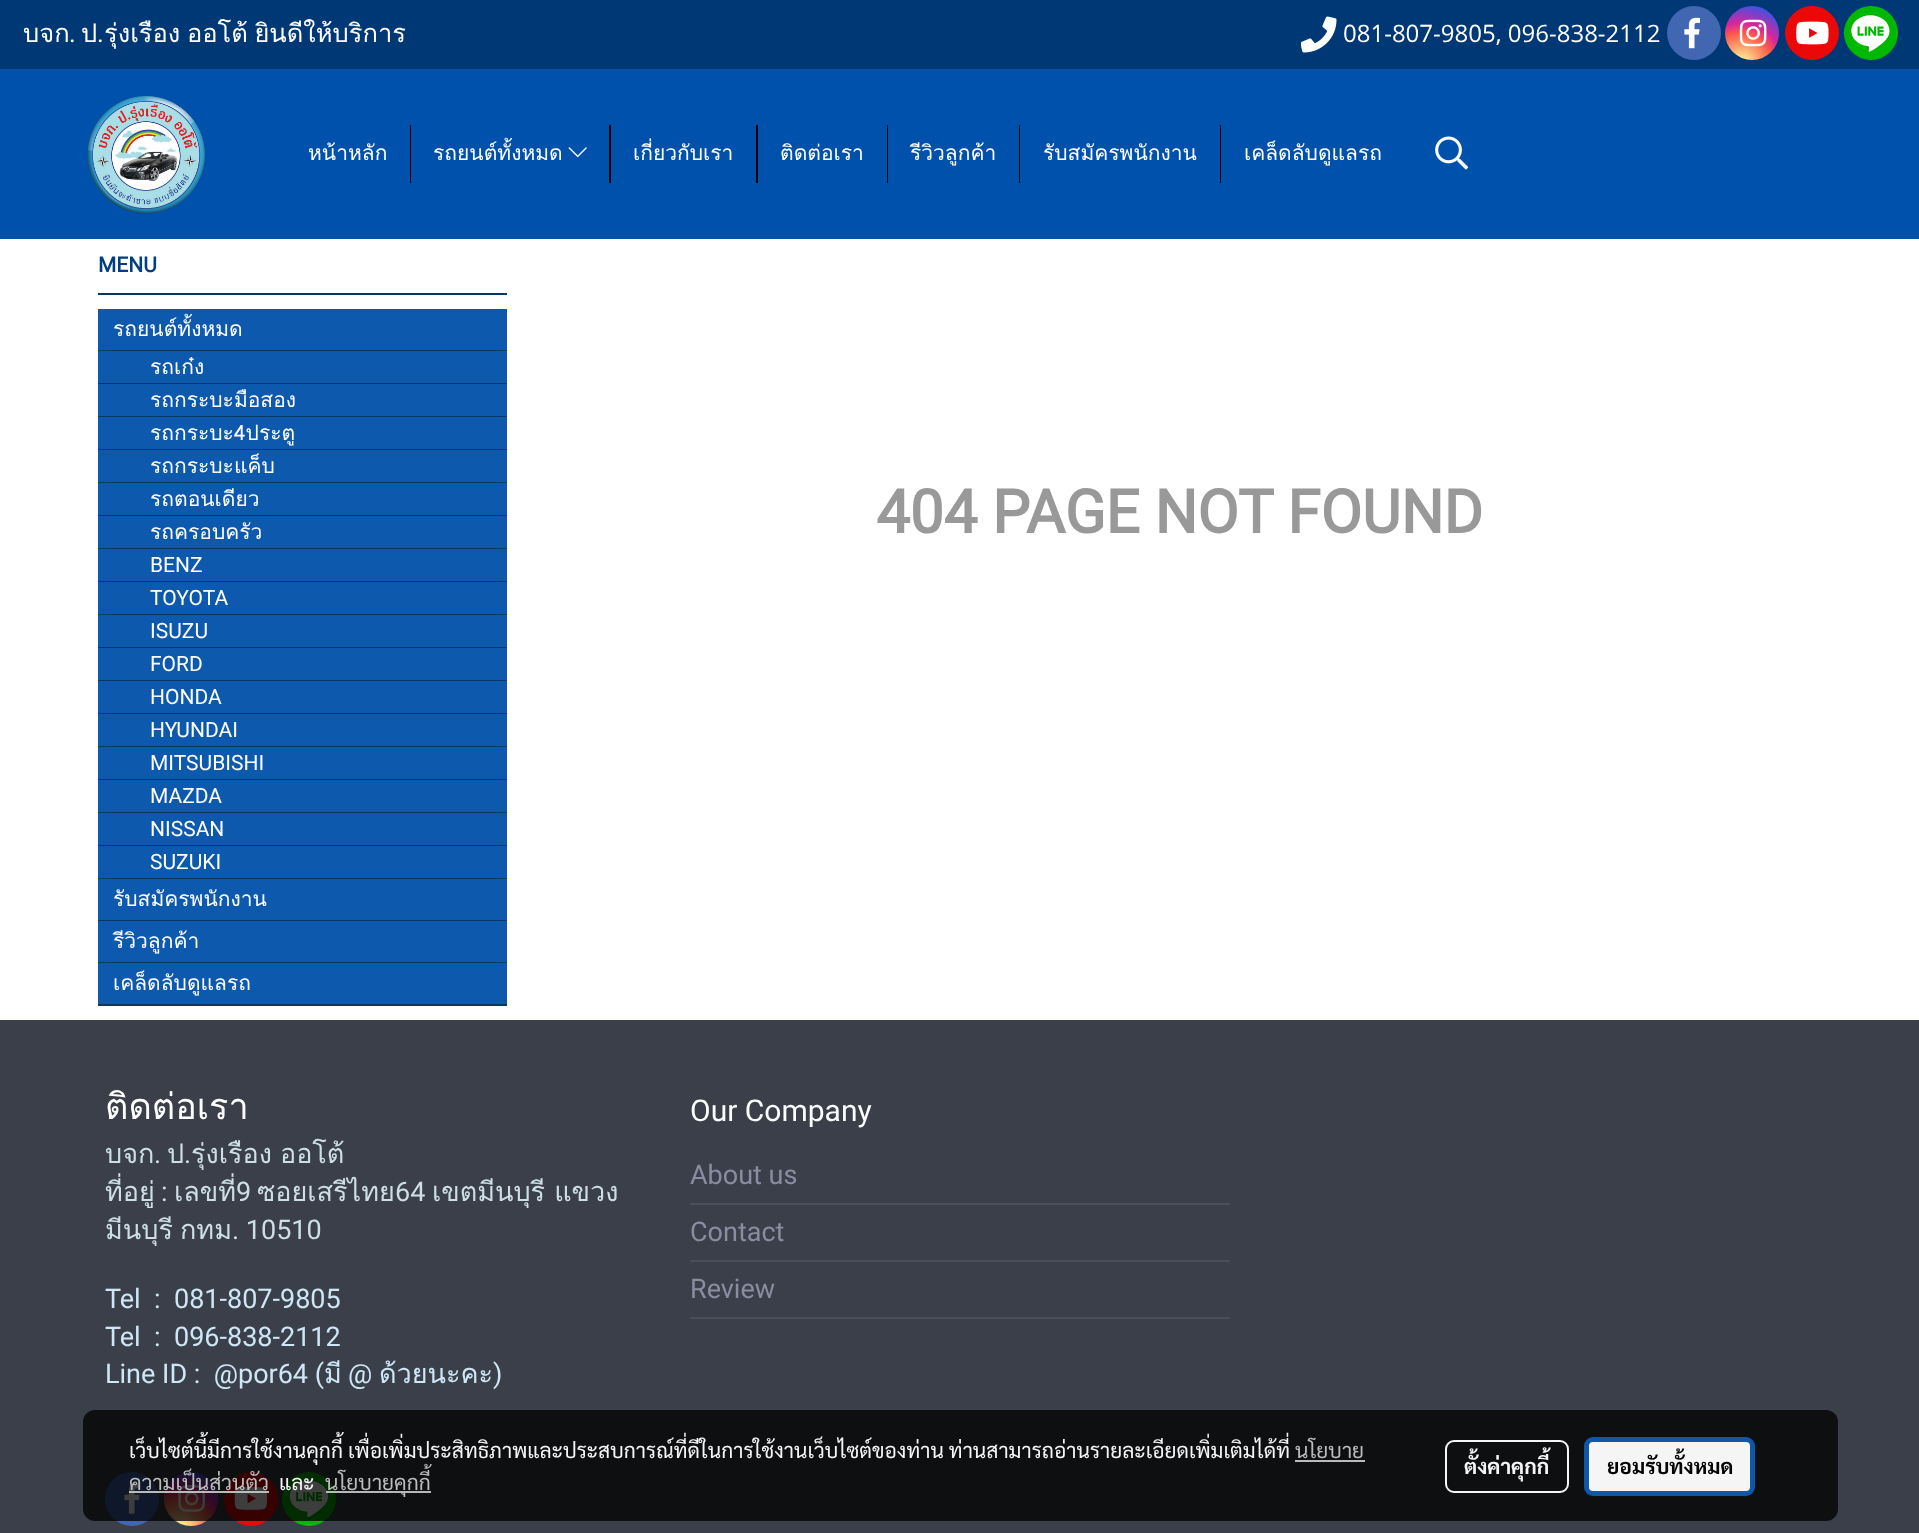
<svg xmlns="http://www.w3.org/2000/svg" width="1919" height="1533">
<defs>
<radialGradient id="g1" gradientUnits="userSpaceOnUse" cx="1741" cy="64" r="69"><stop offset="0" stop-color="#fdf497"/><stop offset="0.05" stop-color="#fdf497"/><stop offset="0.45" stop-color="#fd5949"/><stop offset="0.6" stop-color="#d6249f"/><stop offset="0.9" stop-color="#285aeb"/></radialGradient>
<radialGradient id="g2" gradientUnits="userSpaceOnUse" cx="180" cy="1529" r="69"><stop offset="0" stop-color="#fdf497"/><stop offset="0.05" stop-color="#fdf497"/><stop offset="0.45" stop-color="#fd5949"/><stop offset="0.6" stop-color="#d6249f"/><stop offset="0.9" stop-color="#285aeb"/></radialGradient>
</defs>
<rect width="100%" height="100%" fill="#fff"/>
<rect y="69" width="1919" height="170" fill="#0051ac"/>
<rect width="1919" height="69" fill="#003876"/>
<text x="23" y="42" style="font-family:Loma;font-size:25.5px;fill:#fff">บจก</text>
<text x="69" y="42" style="font-family:Roboto;font-size:25.5px;fill:#fff">.</text>
<text x="81" y="42" style="font-family:Loma;font-size:25.5px;fill:#fff">ป</text>
<text x="97" y="42" style="font-family:Roboto;font-size:25.5px;fill:#fff">.</text>
<text x="104" y="42" word-spacing="-2" style="font-family:Loma;font-size:25.5px;fill:#fff">รุ่งเรือง ออโต้ ยินดีให้บริการ</text>
<image x="1301" y="16" width="36" height="37" href="media/1.png"/>
<text x="1343" y="42" style="font-family:Open Sans;font-size:24px;fill:#fff">081-807-9805, 096-838-2112</text>
<circle cx="1694" cy="33" r="27" fill="#4267b2"/>
<image x="1684" y="17" width="16" height="32" href="media/2.png"/>
<circle cx="1752" cy="33" r="27" fill="url(#g1)"/>
<image x="1739" y="19" width="28" height="28" href="media/3.png"/>
<circle cx="1812" cy="33" r="27" fill="#eb0808"/>
<image x="1796" y="21" width="33" height="24" href="media/4.png"/>
<circle cx="1871" cy="33" r="27" fill="#00b800"/>
<image x="1844" y="6" width="53" height="54" href="media/5.png"/>
<image x="87" y="96" width="118" height="118" href="media/6.png"/>
<rect x="410" y="125" width="1" height="58" fill="#000"/>
<text x="308" y="160" style="font-family:Loma;font-size:21px;fill:#fff">หน้าหลัก</text>
<rect x="609" y="125" width="2" height="58" fill="#000"/>
<text x="433" y="160" style="font-family:Loma;font-size:21px;fill:#fff">รถยนต์ทั้งหมด</text>
<image x="568" y="147" width="19" height="11" href="media/7.png"/>
<rect x="756" y="125" width="2" height="58" fill="#000"/>
<text x="633" y="160" style="font-family:Loma;font-size:21px;fill:#fff">เกี่ยวกับเรา</text>
<rect x="887" y="125" width="1" height="58" fill="#000"/>
<text x="780" y="160" style="font-family:Loma;font-size:21px;fill:#fff">ติดต่อเรา</text>
<rect x="1019" y="125" width="1" height="58" fill="#000"/>
<text x="910" y="160" style="font-family:Loma;font-size:21px;fill:#fff">รีวิวลูกค้า</text>
<rect x="1220" y="125" width="1" height="58" fill="#000"/>
<text x="1043" y="160" style="font-family:Loma;font-size:21px;fill:#fff">รับสมัครพนักงาน</text>
<text x="1244" y="160" style="font-family:Loma;font-size:21px;fill:#fff">เคล็ดลับดูแลรถ</text>
<image x="1435" y="136" width="34" height="34" href="media/8.png"/>
<rect x="98" y="293" width="409" height="2" fill="#073763"/>
<text x="98" y="272" style="font-family:Roboto;font-size:21px;font-weight:bold;fill:#003e83">MENU</text>
<rect x="98" y="309" width="409" height="41" fill="#0d59ad"/>
<rect x="98" y="350" width="409" height="1" fill="#073763"/>
<text x="113" y="336" style="font-family:Loma;font-size:21px;fill:#fff">รถยนต์ทั้งหมด</text>
<rect x="98" y="351" width="409" height="32" fill="#0d59ad"/>
<rect x="98" y="383" width="409" height="1" fill="#073763"/>
<text x="150" y="374" style="font-family:Loma;font-size:21px;fill:#fff">รถเก๋ง</text>
<rect x="98" y="384" width="409" height="32" fill="#0d59ad"/>
<rect x="98" y="416" width="409" height="1" fill="#073763"/>
<text x="150" y="407" style="font-family:Loma;font-size:21px;fill:#fff">รถกระบะมือสอง</text>
<rect x="98" y="417" width="409" height="32" fill="#0d59ad"/>
<rect x="98" y="449" width="409" height="1" fill="#073763"/>
<text x="150" y="440" style="font-family:Loma;font-size:21px;fill:#fff">รถกระบะ4ประตู</text>
<rect x="98" y="450" width="409" height="32" fill="#0d59ad"/>
<rect x="98" y="482" width="409" height="1" fill="#073763"/>
<text x="150" y="473" style="font-family:Loma;font-size:21px;fill:#fff">รถกระบะแค็บ</text>
<rect x="98" y="483" width="409" height="32" fill="#0d59ad"/>
<rect x="98" y="515" width="409" height="1" fill="#073763"/>
<text x="150" y="506" style="font-family:Loma;font-size:21px;fill:#fff">รถตอนเดียว</text>
<rect x="98" y="516" width="409" height="32" fill="#0d59ad"/>
<rect x="98" y="548" width="409" height="1" fill="#073763"/>
<text x="150" y="539" style="font-family:Loma;font-size:21px;fill:#fff">รถครอบครัว</text>
<rect x="98" y="549" width="409" height="32" fill="#0d59ad"/>
<rect x="98" y="581" width="409" height="1" fill="#073763"/>
<text x="150" y="572" style="font-family:Roboto;font-size:21px;fill:#fff">BENZ</text>
<rect x="98" y="582" width="409" height="32" fill="#0d59ad"/>
<rect x="98" y="614" width="409" height="1" fill="#073763"/>
<text x="150" y="605" style="font-family:Roboto;font-size:21px;fill:#fff">TOYOTA</text>
<rect x="98" y="615" width="409" height="32" fill="#0d59ad"/>
<rect x="98" y="647" width="409" height="1" fill="#073763"/>
<text x="150" y="638" style="font-family:Roboto;font-size:21px;fill:#fff">ISUZU</text>
<rect x="98" y="648" width="409" height="32" fill="#0d59ad"/>
<rect x="98" y="680" width="409" height="1" fill="#073763"/>
<text x="150" y="671" style="font-family:Roboto;font-size:21px;fill:#fff">FORD</text>
<rect x="98" y="681" width="409" height="32" fill="#0d59ad"/>
<rect x="98" y="713" width="409" height="1" fill="#073763"/>
<text x="150" y="704" style="font-family:Roboto;font-size:21px;fill:#fff">HONDA</text>
<rect x="98" y="714" width="409" height="32" fill="#0d59ad"/>
<rect x="98" y="746" width="409" height="1" fill="#073763"/>
<text x="150" y="737" style="font-family:Roboto;font-size:21px;fill:#fff">HYUNDAI</text>
<rect x="98" y="747" width="409" height="32" fill="#0d59ad"/>
<rect x="98" y="779" width="409" height="1" fill="#073763"/>
<text x="150" y="770" style="font-family:Roboto;font-size:21px;fill:#fff">MITSUBISHI</text>
<rect x="98" y="780" width="409" height="32" fill="#0d59ad"/>
<rect x="98" y="812" width="409" height="1" fill="#073763"/>
<text x="150" y="803" style="font-family:Roboto;font-size:21px;fill:#fff">MAZDA</text>
<rect x="98" y="813" width="409" height="32" fill="#0d59ad"/>
<rect x="98" y="845" width="409" height="1" fill="#073763"/>
<text x="150" y="836" style="font-family:Roboto;font-size:21px;fill:#fff">NISSAN</text>
<rect x="98" y="846" width="409" height="32" fill="#0d59ad"/>
<rect x="98" y="878" width="409" height="1" fill="#073763"/>
<text x="150" y="869" style="font-family:Roboto;font-size:21px;fill:#fff">SUZUKI</text>
<rect x="98" y="879" width="409" height="41" fill="#0d59ad"/>
<rect x="98" y="920" width="409" height="1" fill="#073763"/>
<text x="113" y="906" style="font-family:Loma;font-size:21px;fill:#fff">รับสมัครพนักงาน</text>
<rect x="98" y="921" width="409" height="41" fill="#0d59ad"/>
<rect x="98" y="962" width="409" height="1" fill="#073763"/>
<text x="113" y="948" style="font-family:Loma;font-size:21px;fill:#fff">รีวิวลูกค้า</text>
<rect x="98" y="963" width="409" height="41" fill="#0d59ad"/>
<rect x="98" y="1004" width="409" height="2" fill="#073763"/>
<text x="113" y="990" style="font-family:Loma;font-size:21px;fill:#fff">เคล็ดลับดูแลรถ</text>
<text x="876" y="533" style="font-family:Roboto;font-size:60px;font-weight:bold;fill:#999">404 PAGE NOT FOUND</text>
<rect y="1020" width="1919" height="513" fill="#3b3f4a"/>
<text x="105" y="1119" style="font-family:Loma;font-size:36px;fill:#fff">ติดต่อเรา</text>
<text x="105" y="1163" style="font-family:Loma;font-size:27px;fill:#cedee7">บจก</text>
<text x="154" y="1163" style="font-family:Roboto;font-size:27px;fill:#cedee7">.</text>
<text x="167" y="1163" style="font-family:Loma;font-size:27px;fill:#cedee7">ป</text>
<text x="184" y="1163" style="font-family:Roboto;font-size:27px;fill:#cedee7">.</text>
<text x="191" y="1163" word-spacing="-1" style="font-family:Loma;font-size:27px;fill:#cedee7">รุ่งเรือง ออโต้</text>
<text x="105" y="1201" style="font-family:Loma;font-size:27px;fill:#cedee7">ที่อยู่</text>
<text x="161" y="1201" style="font-family:Roboto;font-size:27px;fill:#cedee7">:</text>
<text x="174" y="1201" style="font-family:Loma;font-size:27px;fill:#cedee7">เลขที่</text>
<text x="236" y="1201" style="font-family:Roboto;font-size:27px;fill:#cedee7">9</text>
<text x="257" y="1201" style="font-family:Loma;font-size:27px;fill:#cedee7">ซอยเสรีไทย</text>
<text x="395" y="1201" style="font-family:Roboto;font-size:27px;fill:#cedee7">64</text>
<text x="432" y="1201" style="font-family:Loma;font-size:27px;fill:#cedee7">เขตมีนบุรี แขวง</text>
<text x="105" y="1239" style="font-family:Loma;font-size:27px;fill:#cedee7">มีนบุรี</text>
<text x="180" y="1239" style="font-family:Loma;font-size:27px;fill:#cedee7">กทม</text>
<text x="232" y="1239" style="font-family:Roboto;font-size:27px;fill:#cedee7">. 10510</text>
<text x="105" y="1308" style="font-family:Roboto;font-size:27px;fill:#cee7f7" xml:space="preserve">Tel  :  081-807-9805</text>
<text x="105" y="1346" style="font-family:Roboto;font-size:27px;fill:#cee7f7" xml:space="preserve">Tel  :  096-838-2112</text>
<text x="105" y="1383" style="font-family:Roboto;font-size:27px;fill:#cee7f7" xml:space="preserve">Line ID :  @por64 (</text>
<text x="324" y="1383" style="font-family:Loma;font-size:27px;fill:#cee7f7">มี</text>
<text x="348" y="1383" style="font-family:Roboto;font-size:27px;fill:#cee7f7">@</text>
<text x="379" y="1383" style="font-family:Loma;font-size:27px;fill:#cee7f7">ด้วยนะคะ</text>
<text x="493" y="1383" style="font-family:Roboto;font-size:27px;fill:#cee7f7">)</text>
<circle cx="132" cy="1499" r="27" fill="#4267b2"/>
<image x="124" y="1483" width="16" height="31" href="media/9.png"/>
<circle cx="191" cy="1499" r="27" fill="url(#g2)"/>
<image x="178" y="1485" width="27" height="27" href="media/10.png"/>
<circle cx="251" cy="1499" r="27" fill="#eb0808"/>
<image x="234" y="1487" width="34" height="23" href="media/11.png"/>
<circle cx="309" cy="1499" r="27" fill="#00b800"/>
<image x="289" y="1472" width="39" height="53" href="media/12.png"/>
<text x="690" y="1121" style="font-family:Roboto;font-size:30px;fill:#fff">Our Company</text>
<rect x="690" y="1203" width="540" height="2" fill="#4a4d5c"/>
<text x="690" y="1184" style="font-family:Roboto;font-size:27px;fill:#878ea1">About us</text>
<rect x="690" y="1260" width="540" height="2" fill="#4a4d5c"/>
<text x="690" y="1241" style="font-family:Roboto;font-size:27px;fill:#878ea1">Contact</text>
<rect x="690" y="1317" width="540" height="2" fill="#4a4d5c"/>
<text x="690" y="1298" style="font-family:Roboto;font-size:27px;fill:#878ea1">Review</text>
<rect x="83" y="1410" width="1755" height="111" rx="12" fill="#000000c2"/>
<text x="129" y="1458" style="font-family:Sarabun;font-size:21px;fill:#f5f5f6">เว็บไซต์นี้มีการใช้งานคุกกี้ เพื่อเพิ่มประสิทธิภาพและประสบการณ์ที่ดีในการใช้งานเว็บไซต์ของท่าน ท่านสามารถอ่านรายละเอียดเพิ่มเติมได้ที่</text>
<text x="1295" y="1458" style="font-family:Sarabun;font-size:21px;fill:#bbbbbc">นโยบาย</text>
<rect x="1295" y="1460" width="70" height="2" fill="#bbbbbc"/>
<text x="129" y="1490" style="font-family:Sarabun;font-size:21px;fill:#bbbbbc">ความเป็นส่วนตัว</text>
<rect x="129" y="1491" width="140" height="2" fill="#c2c2c2f2"/>
<text x="279" y="1490" style="font-family:Sarabun;font-size:21px;fill:#f5f5f6">และ</text>
<rect x="326" y="1491" width="105" height="2" fill="#c2c2c2f2"/>
<text x="325" y="1490" style="font-family:Sarabun;font-size:21px;fill:#bbbbbc">นโยบายคุกกี้</text>
<rect x="1446" y="1441" width="122" height="51" rx="8" fill="none" stroke="#f5f5f6" stroke-width="2"/>
<text x="1464" y="1474" style="font-family:Sarabun;font-size:21px;font-weight:bold;fill:#f5f5f6">ตั้งค่าคุกกี้</text>
<rect x="1586.5" y="1439.5" width="166" height="54" rx="6.5" fill="#f5f5f6" stroke="#0f58a8" stroke-width="5"/>
<text x="1607" y="1474" style="font-family:Sarabun;font-size:21px;font-weight:bold;fill:#030304">ยอมรับทั้งหมด</text>
</svg>
